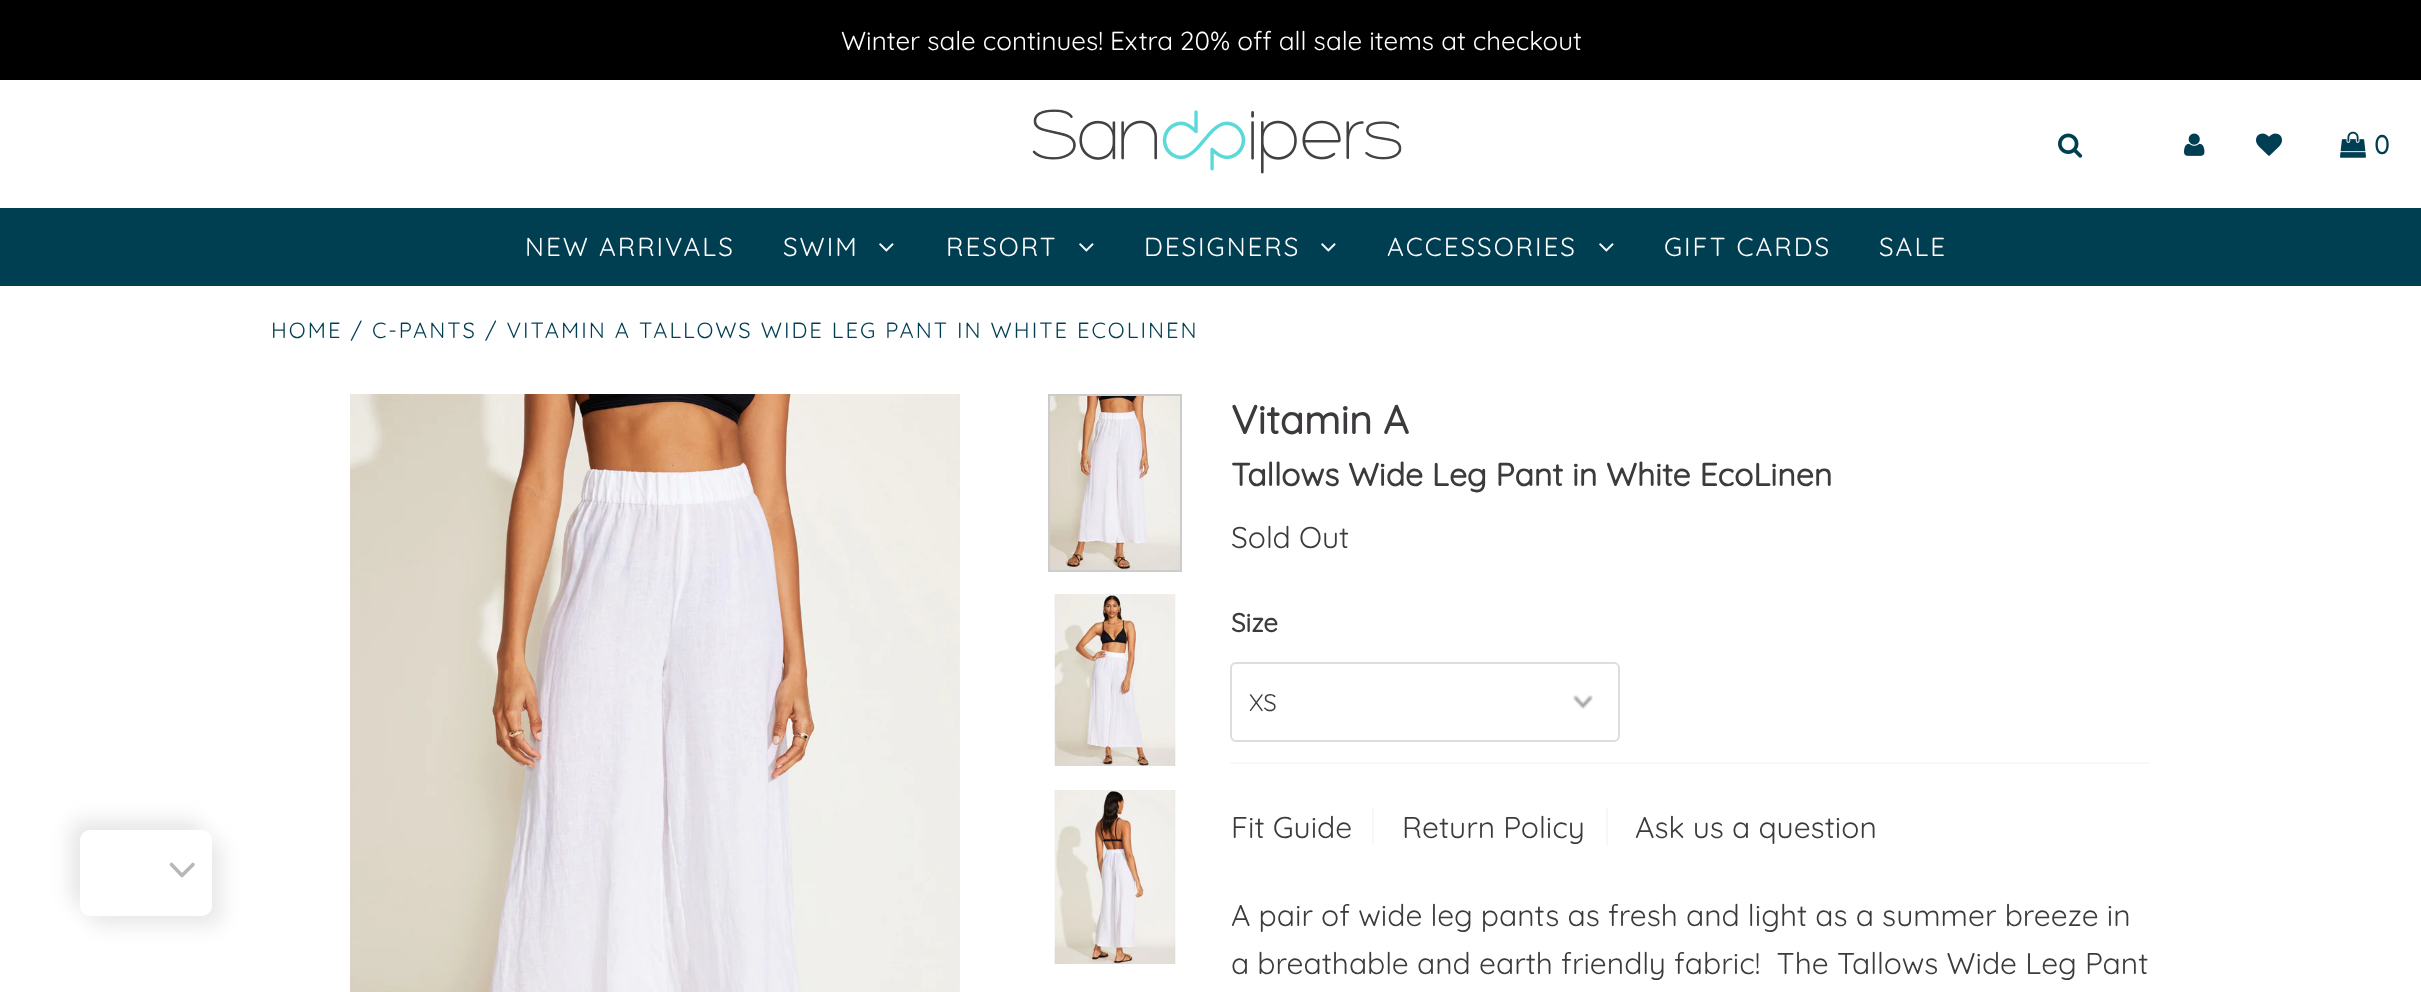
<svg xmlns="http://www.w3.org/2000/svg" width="2421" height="992">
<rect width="100%" height="100%" fill="#fff"/>
<rect x="70" y="820" width="132" height="86" rx="10" fill="#e8e8e8" filter="blur(10px)"/>
<rect x="90" y="840" width="132" height="86" rx="10" fill="#e8e8e8" filter="blur(10px)"/>
<rect x="80" y="830" width="132" height="86" rx="10" fill="#fff"/>
<path d="M171.5 864.5l10.5 11l11-11" fill="none" stroke="#b7b7b7" stroke-width="3.6" stroke-linecap="round" stroke-linejoin="round"/>
<rect width="2421" height="80" fill="#000"/>
<text x="841" y="50" style="font-family:Quicksand;font-size:26px;font-weight:300;fill:#fff">Winter sale continues! Extra 20% off all sale items at checkout</text>
<image x="1032" y="109" width="370" height="65" href="media/1.png"/>
<image x="2058" y="133" width="25" height="25" href="media/2.png"/>
<image x="2184" y="133" width="21" height="23" href="media/3.png"/>
<image x="2256" y="133" width="26" height="23" href="media/4.png"/>
<image x="2340" y="131" width="26" height="27" href="media/5.png"/>
<text x="2374" y="154" style="font-family:Quicksand;font-size:26px;font-weight:bold;fill:#003e52">0</text>
<rect y="208" width="2421" height="78" fill="#003e52"/>
<text x="525" y="256" style="font-family:Quicksand;font-size:26px;font-weight:300;letter-spacing:2px;fill:#fff">NEW ARRIVALS</text>
<text x="783" y="256" style="font-family:Quicksand;font-size:26px;font-weight:300;letter-spacing:2px;fill:#fff">SWIM</text>
<image x="879" y="243" width="15" height="9" href="media/6.png"/>
<text x="946" y="256" style="font-family:Quicksand;font-size:26px;font-weight:300;letter-spacing:2px;fill:#fff">RESORT</text>
<image x="1079" y="243" width="15" height="9" href="media/6.png"/>
<text x="1144" y="256" style="font-family:Quicksand;font-size:26px;font-weight:300;letter-spacing:2px;fill:#fff">DESIGNERS</text>
<image x="1321" y="243" width="15" height="9" href="media/6.png"/>
<text x="1387" y="256" style="font-family:Quicksand;font-size:26px;font-weight:300;letter-spacing:2px;fill:#fff">ACCESSORIES</text>
<image x="1599" y="243" width="15" height="9" href="media/6.png"/>
<text x="1664" y="256" style="font-family:Quicksand;font-size:26px;font-weight:300;letter-spacing:2px;fill:#fff">GIFT CARDS</text>
<text x="1879" y="256" style="font-family:Quicksand;font-size:26px;font-weight:300;letter-spacing:2px;fill:#fff">SALE</text>
<text x="271" y="338" style="font-family:Quicksand;font-size:22px;font-weight:300;letter-spacing:2px;fill:#003e52">HOME / C-PANTS / VITAMIN A TALLOWS WIDE LEG PANT IN WHITE ECOLINEN</text>
<image x="350" y="394" width="610" height="598" href="media/7.png"/>
<rect x="1049" y="395" width="132" height="176" fill="none" stroke="#ccc" stroke-width="2"/>
<image x="1050" y="396" width="130" height="174" href="media/8.png"/>
<image x="1054" y="594" width="122" height="172" href="media/9.png"/>
<image x="1054" y="790" width="122" height="174" href="media/10.png"/>
<text x="1231" y="434" style="font-family:Quicksand;font-size:40px;font-weight:bold;fill:#3d3a3d">Vitamin A</text>
<text x="1231" y="486" style="font-family:Quicksand;font-size:32px;font-weight:bold;fill:#3d3a3d">Tallows Wide Leg Pant in White EcoLinen</text>
<text x="1231" y="548" style="font-family:Quicksand;font-size:30px;font-weight:300;fill:#3d3a3d">Sold Out</text>
<rect x="1230" y="762" width="920" height="2" fill="#f8f8f8"/>
<text x="1231" y="632" style="font-family:Quicksand;font-size:26px;font-weight:bold;fill:#3d3a3d">Size</text>
<image x="1573" y="695" width="20" height="14" href="media/11.png"/>
<rect x="1231" y="663" width="388" height="78" rx="5" fill="none" stroke="#ddd" stroke-width="2"/>
<text x="1249" y="711" style="font-family:Quicksand;font-size:24px;font-weight:300;fill:#3d3a3d">XS</text>
<text x="1231" y="838" style="font-family:Quicksand;font-size:30px;font-weight:300;fill:#3d3a3d">Fit Guide</text>
<rect x="1372" y="808" width="2" height="38" fill="#f8f8f8"/>
<text x="1402" y="838" style="font-family:Quicksand;font-size:30px;font-weight:300;fill:#3d3a3d">Return Policy</text>
<rect x="1606" y="808" width="2" height="38" fill="#f8f8f8"/>
<text x="1635" y="838" style="font-family:Quicksand;font-size:30px;font-weight:300;fill:#3d3a3d">Ask us a question</text>
<text x="1231" y="926" style="font-family:Quicksand;font-size:30px;font-weight:300;fill:#3d3a3d">A pair of wide leg pants as fresh and light as a summer breeze in</text>
<text x="1231" y="974" style="font-family:Quicksand;font-size:30px;font-weight:300;fill:#3d3a3d" xml:space="preserve">a breathable and earth friendly fabric!  The Tallows Wide Leg Pant</text>
</svg>
